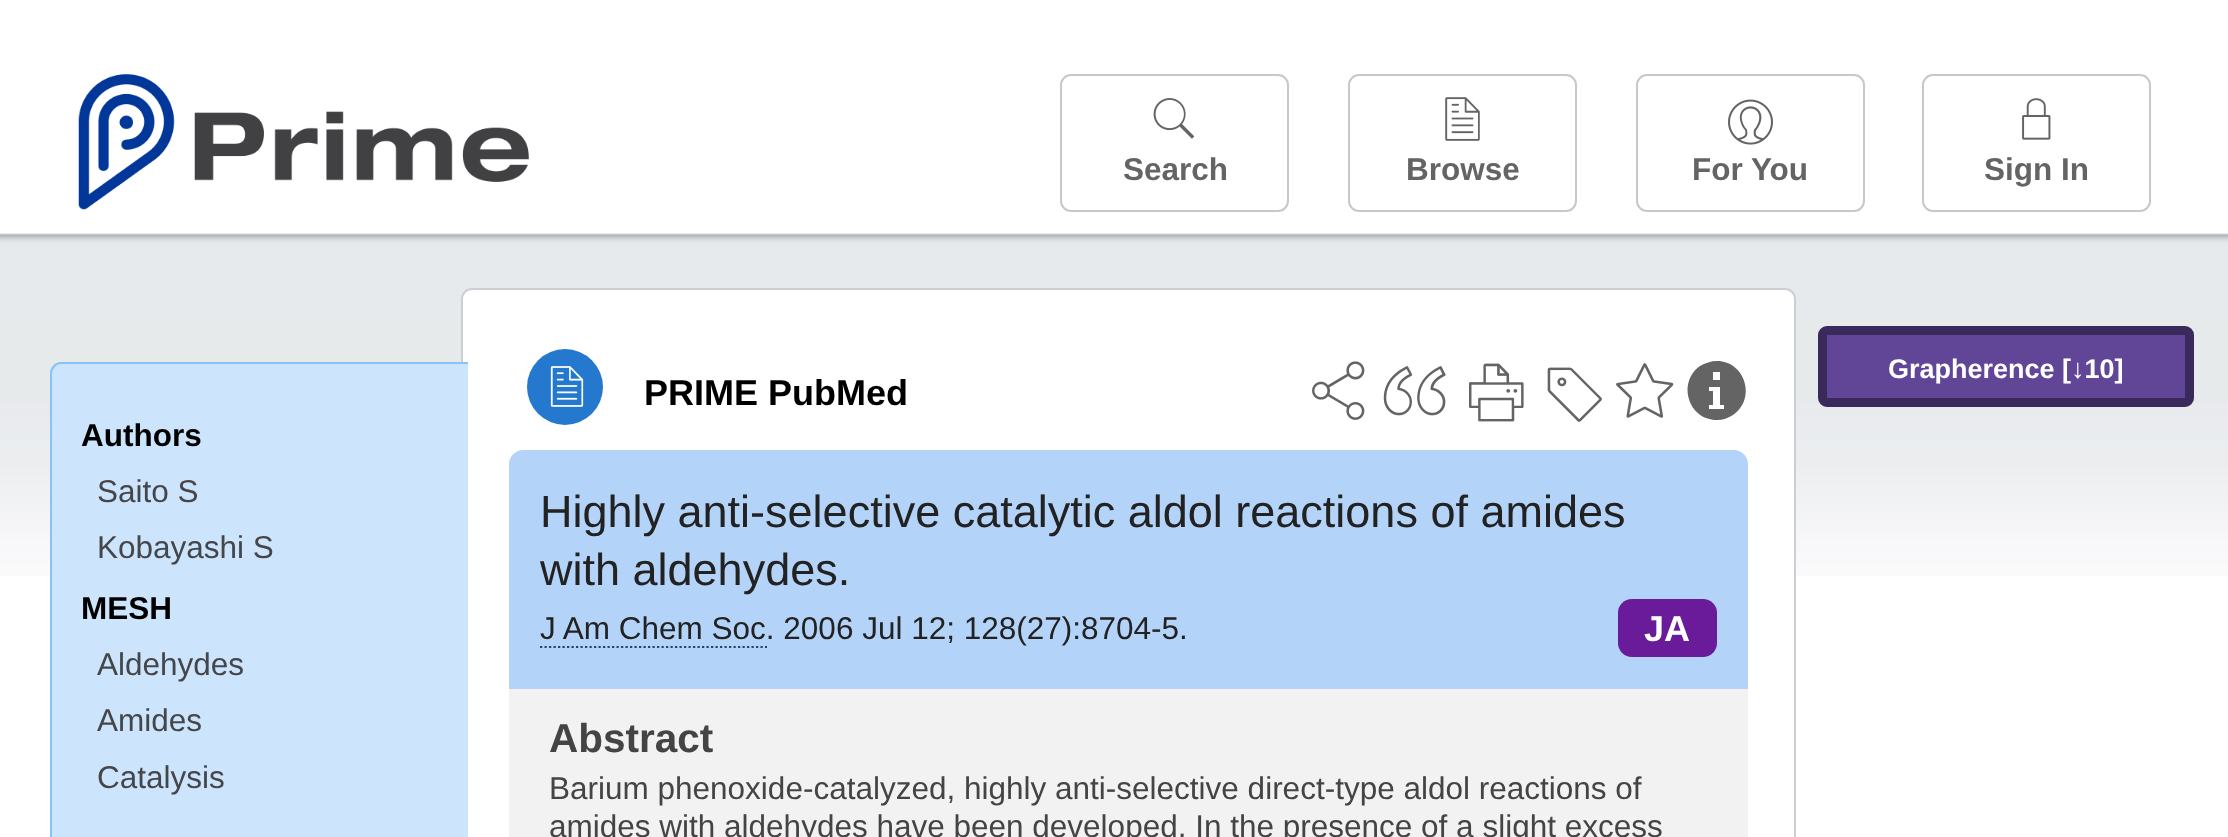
<svg xmlns="http://www.w3.org/2000/svg" width="2228" height="837">
<defs>
<clipPath id="clip1"><rect x="27" y="288" width="441" height="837"/></clipPath>
</defs>
<rect width="100%" height="100%" fill="#fff"/>
<image x="78" y="74" width="451" height="136" href="media/1.png"/>
<rect x="1061" y="75" width="227" height="136" rx="10" fill="none" stroke="#c8c8c8" stroke-width="2"/>
<image x="1153" y="98" width="42" height="41" href="media/2.png"/>
<text x="1123" y="180" style="font-family:Liberation Sans;font-size:31.5px;font-weight:bold;fill:#646464">Search</text>
<rect x="1349" y="75" width="227" height="136" rx="10" fill="none" stroke="#c8c8c8" stroke-width="2"/>
<image x="1445" y="97" width="35" height="44" href="media/3.png"/>
<text x="1406" y="180" style="font-family:Liberation Sans;font-size:31.5px;font-weight:bold;fill:#646464">Browse</text>
<rect x="1637" y="75" width="227" height="136" rx="10" fill="none" stroke="#c8c8c8" stroke-width="2"/>
<image x="1728" y="99" width="45" height="46" href="media/4.png"/>
<text x="1692" y="180" style="font-family:Liberation Sans;font-size:31.5px;font-weight:bold;fill:#646464">For You</text>
<rect x="1923" y="75" width="227" height="136" rx="10" fill="none" stroke="#c8c8c8" stroke-width="2"/>
<image x="2022" y="98" width="29" height="42" href="media/5.png"/>
<text x="1984" y="180" style="font-family:Liberation Sans;font-size:31.5px;font-weight:bold;fill:#646464">Sign In</text>
<image x="0" y="233" width="2228" height="343" href="media/6.png"/>
<rect x="1822.5" y="330.5" width="367" height="72" rx="4.5" fill="#614698" stroke="#3a2a5b" stroke-width="9"/>
<text x="1888" y="378" style="font-family:Liberation Sans;font-size:27px;font-weight:bold;fill:#fff">Grapherence [↓10]</text>
<rect x="462" y="289" width="1333" height="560" rx="10" fill="#fff" stroke="#cbcfd4" stroke-width="2"/>
<path d="M61 362h407v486h-418v-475c0-6 5-11 11-11z" fill="#cce4fc"/>
<g clip-path="url(#clip1)">
<path d="M61 362h454v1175h-454c-6 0-11-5-11-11v-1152c0-7 5-12 11-12zm0 2h454v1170h-454c-5 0-9-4-9-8v-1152c0-5 4-10 9-10z" fill="#88c2fa" fill-rule="evenodd"/>
</g>
<text x="81" y="446" style="font-family:Liberation Sans;font-size:31.5px;font-weight:bold;fill:#000">Authors</text>
<text x="97" y="502" style="font-family:Liberation Sans;font-size:31.5px;fill:#45464a">Saito S</text>
<text x="97" y="558" style="font-family:Liberation Sans;font-size:31.5px;fill:#45464a">Kobayashi S</text>
<text x="81" y="619" style="font-family:Liberation Sans;font-size:31.5px;font-weight:bold;fill:#000">MESH</text>
<text x="97" y="675" style="font-family:Liberation Sans;font-size:31.5px;fill:#45464a">Aldehydes</text>
<text x="97" y="731" style="font-family:Liberation Sans;font-size:31.5px;fill:#45464a">Amides</text>
<text x="97" y="788" style="font-family:Liberation Sans;font-size:31.5px;fill:#45464a">Catalysis</text>
<circle cx="565" cy="387" r="38" fill="#2479ce"/>
<image x="550" y="366" width="34" height="41" href="media/7.png"/>
<text x="644" y="405" style="font-family:Liberation Sans;font-size:36px;font-weight:bold;fill:#000">PRIME PubMed</text>
<image x="1312" y="361" width="53" height="59" href="media/8.png"/>
<image x="1383" y="366" width="63" height="50" href="media/9.png"/>
<image x="1469" y="363" width="55" height="59" href="media/10.png"/>
<image x="1547" y="367" width="55" height="55" href="media/11.png"/>
<image x="1616" y="363" width="58" height="55" href="media/12.png"/>
<path d="M1717 361c-6 0-12 2-17 5c-23 16-12 54 17 54c6 0 11-2 16-5c24-16 12-54-16-54zm-4 11h7v8h-7zm11 37h-15v-4h4v-14h-4v-4h11v18h4z" fill="#646464"/>
<path d="M523 450h1211c7.5 0 14 6.5 14 14v225h-1239v-225c0-7.5 6.5-14 14-14z" fill="#b4d3f9"/>
<text x="540" y="527" style="font-family:Liberation Sans;font-size:45px;fill:#222">Highly anti-selective catalytic aldol reactions of amides</text>
<text x="540" y="585" style="font-family:Liberation Sans;font-size:45px;fill:#222">with aldehydes.</text>
<path d="M540 647h227" fill="none" stroke="#2d3e75" stroke-width="2.2" stroke-dasharray="2.25 2.25"/>
<text x="540" y="639" style="font-family:Liberation Sans;font-size:31.5px;fill:#222">J Am Chem Soc. 2006 Jul 12; 128(27):8704-5.</text>
<rect x="1618" y="599" width="99" height="58" rx="14" fill="#6a1b9a"/>
<text x="1644" y="641" style="font-family:Liberation Sans;font-size:36px;font-weight:bold;fill:#fff">JA</text>
<rect x="509" y="689" width="1239" height="148" fill="#f2f2f2"/>
<text x="549" y="752" style="font-family:Liberation Sans;font-size:40.5px;font-weight:bold;fill:#444">Abstract</text>
<text x="549" y="799" style="font-family:Liberation Sans;font-size:31.5px;fill:#444">Barium phenoxide-catalyzed, highly anti-selective direct-type aldol reactions of</text>
<text x="549" y="837" style="font-family:Liberation Sans;font-size:31.5px;fill:#444">amides with aldehydes have been developed. In the presence of a slight excess</text>
</svg>
